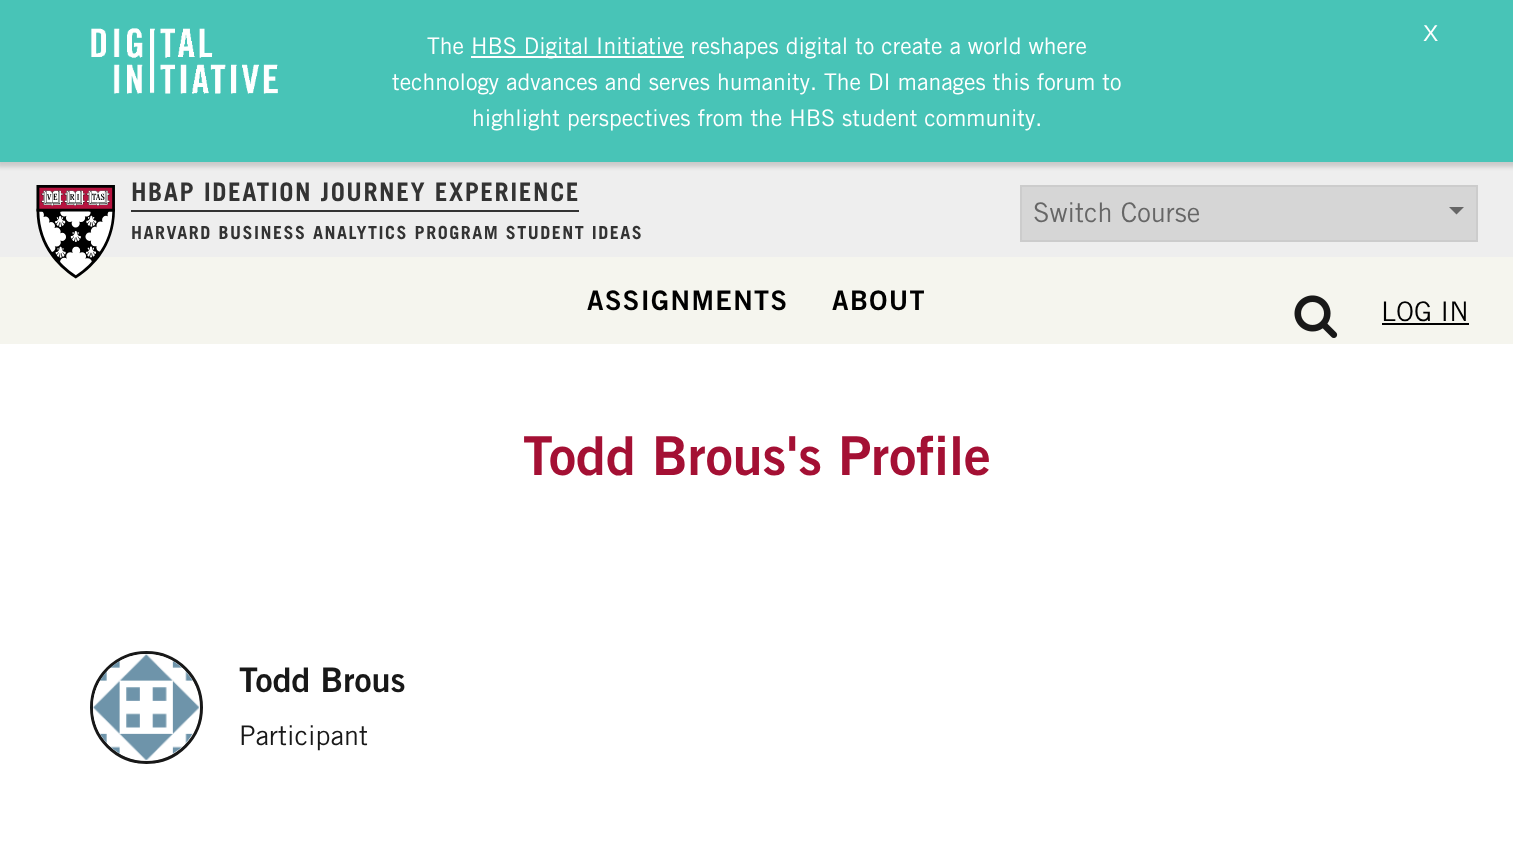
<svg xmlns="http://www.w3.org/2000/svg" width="1513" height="850">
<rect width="100%" height="100%" fill="#fff"/>
<rect y="162" width="1513" height="95" fill="#eee"/>
<rect x="-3" y="-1" width="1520" height="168" fill="#00000026" filter="blur(2px)"/>
<rect width="1513" height="162" fill="#48c4b7"/>
<image x="91" y="28" width="187" height="66" href="media/1.png"/>
<text x="427" y="54" style="font-family:Trade Gothic;font-size:22.95px;fill:#fff">The</text>
<rect x="471" y="56" width="213" height="2" fill="#fff"/>
<text x="471" y="54" style="font-family:Trade Gothic;font-size:22.95px;fill:#fff">HBS Digital Initiative reshapes digital to create a world where</text>
<text x="392" y="90" style="font-family:Trade Gothic;font-size:22.95px;fill:#fff">technology advances and serves humanity. The DI manages this forum to</text>
<text x="472" y="126" style="font-family:Trade Gothic;font-size:22.95px;fill:#fff">highlight perspectives from the HBS student community.</text>
<text x="1423" y="41" style="font-family:Liberation Sans;font-size:22.95px;fill:#fff">X</text>
<rect y="257" width="1513" height="87" fill="#f5f5ee"/>
<image x="36" y="185" width="79" height="94" href="media/2.png"/>
<rect x="131" y="210" width="448" height="2" fill="#333"/>
<text x="131" y="201" style="font-family:'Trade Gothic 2';font-size:25.5px;font-weight:bold;letter-spacing:1.5px;fill:#333">HBAP IDEATION JOURNEY EXPERIENCE</text>
<text x="131" y="239" style="font-family:'Trade Gothic 2';font-size:18px;font-weight:bold;letter-spacing:1.5px;fill:#333">HARVARD BUSINESS ANALYTICS PROGRAM STUDENT IDEAS</text>
<rect x="1021" y="186" width="456" height="55" fill="#d6d6d6" stroke="#ccc" stroke-width="2"/>
<text x="1033" y="222" style="font-family:Trade Gothic;font-size:27px;fill:#666">Switch Course</text>
<path d="M1449 207h15l-7.5 7.5z" fill="#666"/>
<text x="587" y="310" style="font-family:Trade Gothic;font-size:27px;font-weight:bold;letter-spacing:1.4px;fill:#000">ASSIGNMENTS</text>
<text x="832" y="310" style="font-family:Trade Gothic;font-size:27px;font-weight:bold;letter-spacing:1.4px;fill:#000">ABOUT</text>
<image x="1294" y="295" width="44" height="43" href="media/3.png"/>
<text x="1381" y="321" style="font-family:Trade Gothic;font-size:27px;fill:#000">LOG IN</text>
<rect x="1382" y="323" width="87" height="2" fill="#000"/>
<text x="523" y="475" style="font-family:Trade Gothic;font-size:53.75px;font-weight:bold;fill:#a41034">Todd Brous's Profile</text>
<circle cx="146.5" cy="707.5" r="55" fill="none" stroke="#181818" stroke-width="3"/>
<image x="93" y="654" width="107" height="107" href="media/4.png"/>
<text x="239" y="692" style="font-family:Trade Gothic;font-size:34px;font-weight:bold;fill:#181818">Todd Brous</text>
<text x="239" y="745" style="font-family:Trade Gothic;font-size:27px;fill:#181818">Participant</text>
</svg>
